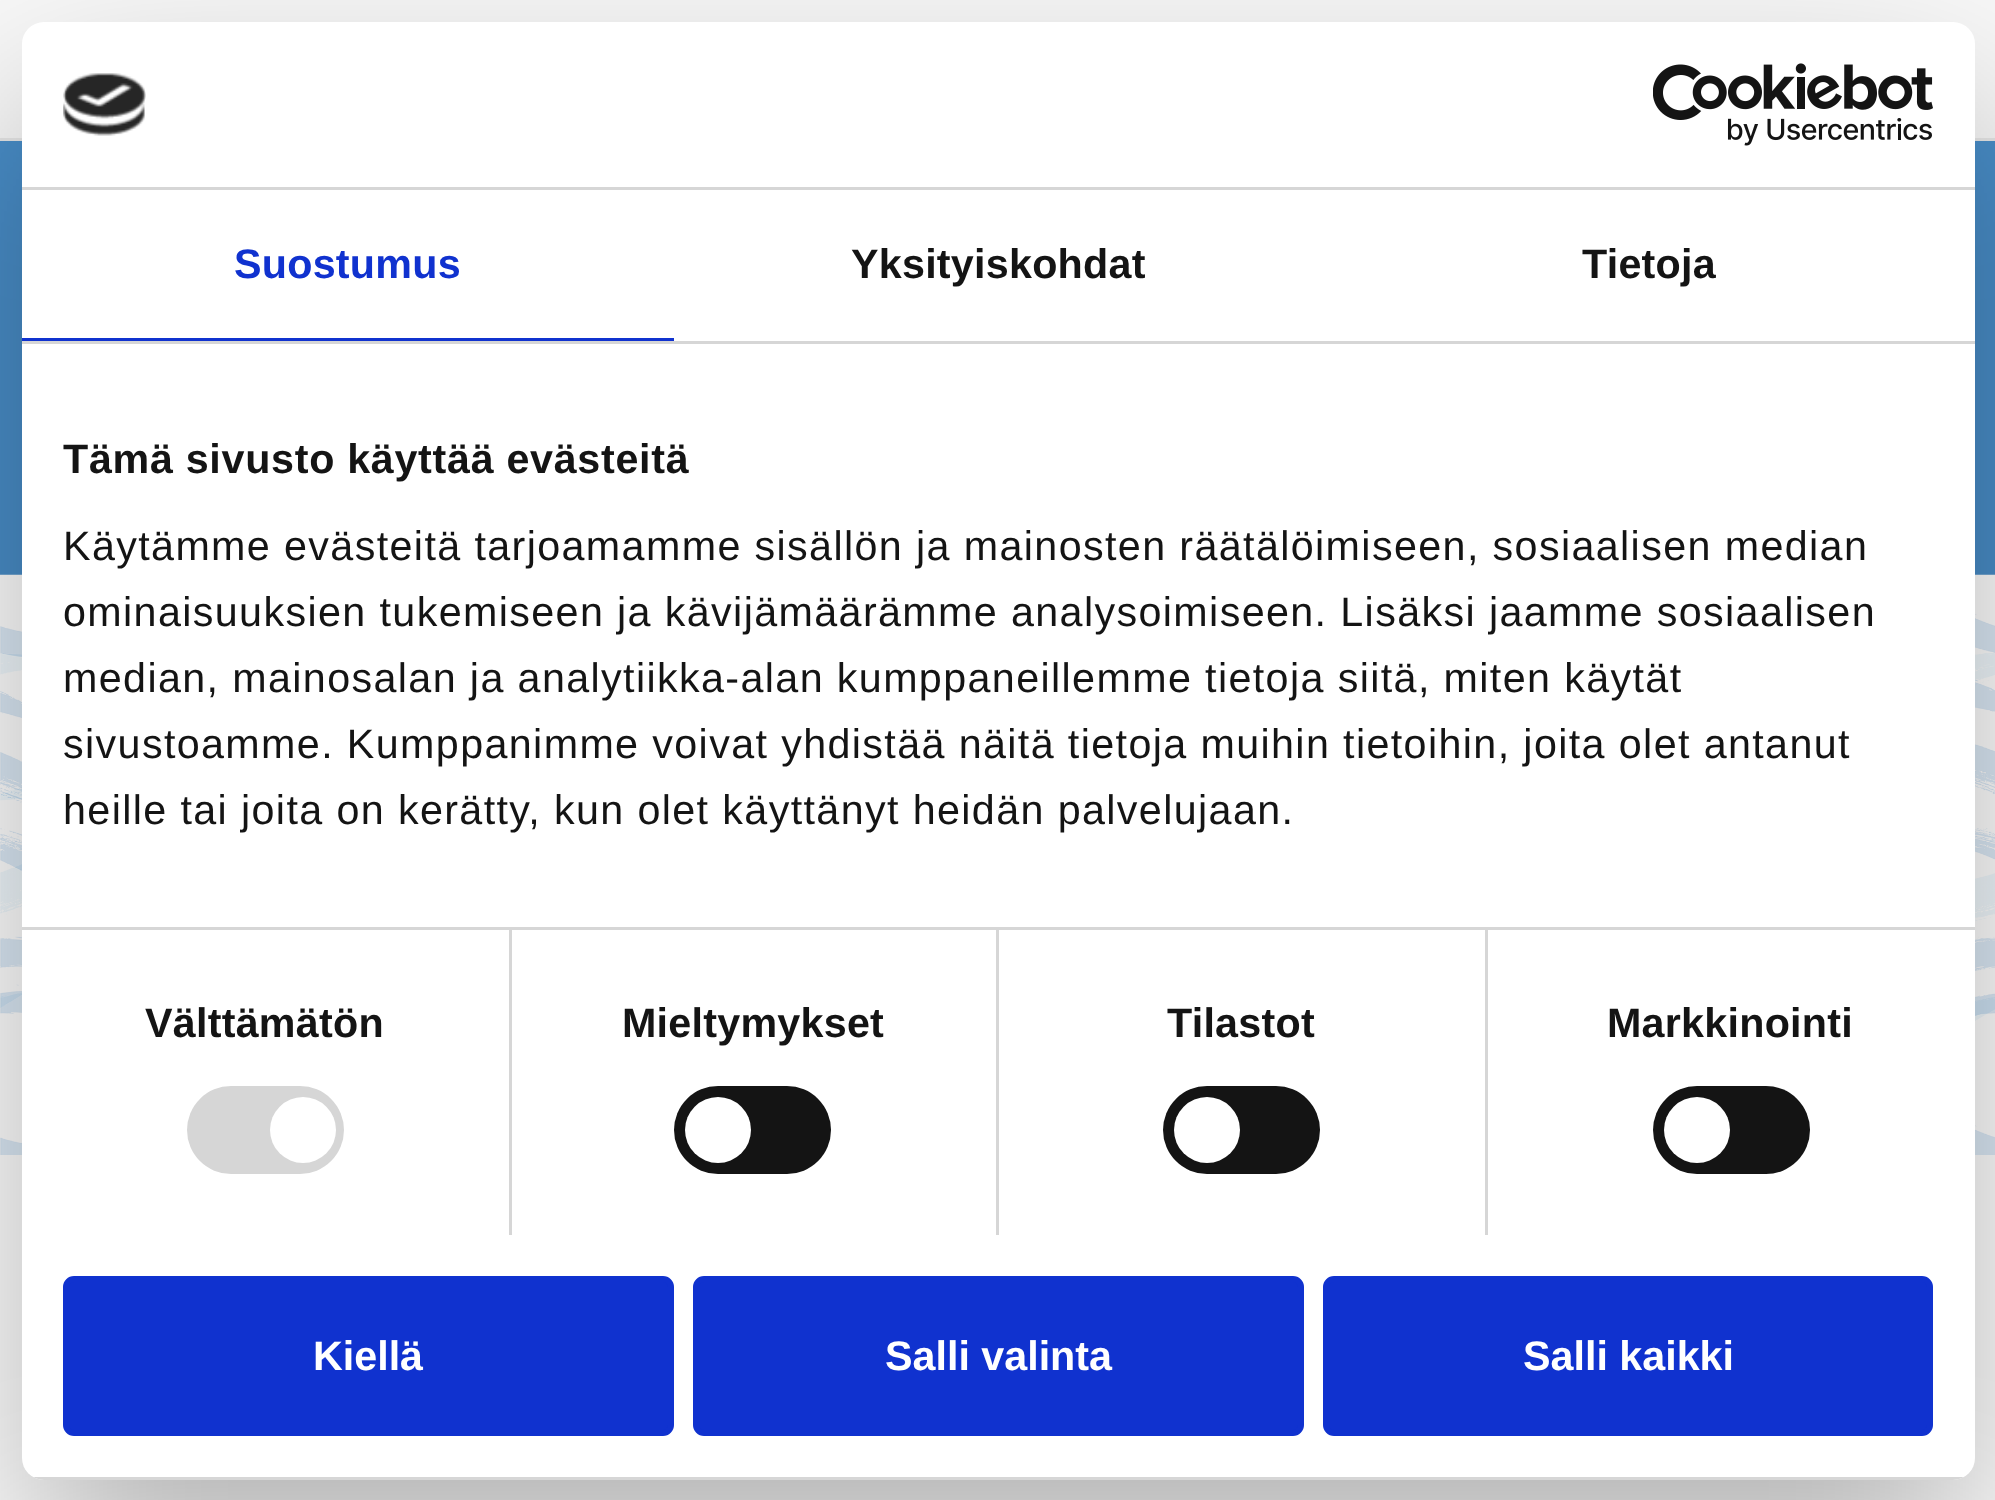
<svg xmlns="http://www.w3.org/2000/svg" width="1995" height="1500">
<defs>
<clipPath id="clip1"><rect x="22" y="22" width="1953" height="1458" rx="22"/></clipPath>
</defs>
<rect width="100%" height="100%" fill="#498ec9"/>
<rect width="1995" height="138" fill="#f8f8f8"/>
<rect y="138" width="1995" height="3" fill="#e7e7e7"/>
<image x="0" y="574" width="1995" height="581" href="media/3.png"/>
<rect y="1155" width="1995" height="345" fill="#fff"/>
<rect x="22" y="110" width="1953" height="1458" rx="22" fill="#0000004d" filter="blur(93.5px)"/>
<rect x="22" y="22" width="1953" height="1458" rx="22" fill="#fff"/>
<rect x="22" y="187" width="1953" height="3" fill="#d6d6d6"/>
<image x="63" y="73" width="83" height="63" href="media/1.png"/>
<image x="1653" y="63" width="280" height="83" href="media/2.png"/>
<rect x="22" y="341" width="1953" height="3" fill="#d6d6d6"/>
<rect x="22" y="338" width="652" height="3" fill="#1032cf"/>
<text x="234" y="278" style="font-family:Liberation Sans;font-size:41.25px;font-weight:bold;letter-spacing:0.25px;fill:#1032cf">Suostumus</text>
<text x="851" y="278" style="font-family:Liberation Sans;font-size:41.25px;font-weight:bold;letter-spacing:0.25px;fill:#141414">Yksityiskohdat</text>
<text x="1582" y="278" style="font-family:Liberation Sans;font-size:41.25px;font-weight:bold;letter-spacing:0.25px;fill:#141414">Tietoja</text>
<rect x="22" y="927" width="1953" height="3" fill="#d6d6d6"/>
<text x="63" y="473" style="font-family:Liberation Sans;font-size:41.25px;font-weight:bold;letter-spacing:0.7px;fill:#141414">Tämä sivusto käyttää evästeitä</text>
<text x="63" y="560" style="font-family:Liberation Sans;font-size:41.25px;letter-spacing:1.38px;fill:#141414">Käytämme evästeitä tarjoamamme sisällön ja mainosten räätälöimiseen, sosiaalisen median</text>
<text x="63" y="626" style="font-family:Liberation Sans;font-size:41.25px;letter-spacing:1.38px;fill:#141414">ominaisuuksien tukemiseen ja kävijämäärämme analysoimiseen. Lisäksi jaamme sosiaalisen</text>
<text x="63" y="692" style="font-family:Liberation Sans;font-size:41.25px;letter-spacing:1.38px;fill:#141414">median, mainosalan ja analytiikka-alan kumppaneillemme tietoja siitä, miten käytät</text>
<text x="63" y="758" style="font-family:Liberation Sans;font-size:41.25px;letter-spacing:1.38px;fill:#141414">sivustoamme. Kumppanimme voivat yhdistää näitä tietoja muihin tietoihin, joita olet antanut</text>
<text x="63" y="824" style="font-family:Liberation Sans;font-size:41.25px;letter-spacing:1.38px;fill:#141414">heille tai joita on kerätty, kun olet käyttänyt heidän palvelujaan.</text>
<rect x="509" y="930" width="3" height="305" fill="#d6d6d6"/>
<text x="145" y="1037" style="font-family:Liberation Sans;font-size:41.25px;font-weight:bold;letter-spacing:0.25px;fill:#141414">Välttämätön</text>
<rect x="187" y="1086" width="157" height="88" rx="44" fill="#d6d6d6"/>
<circle cx="303" cy="1130" r="33" fill="#fff"/>
<rect x="996" y="930" width="3" height="305" fill="#d6d6d6"/>
<text x="622" y="1037" style="font-family:Liberation Sans;font-size:41.25px;font-weight:bold;letter-spacing:0.25px;fill:#141414">Mieltymykset</text>
<rect x="674" y="1086" width="157" height="88" rx="44" fill="#141414"/>
<circle cx="718" cy="1130" r="33" fill="#fff"/>
<rect x="1485" y="930" width="3" height="305" fill="#d6d6d6"/>
<text x="1167" y="1037" style="font-family:Liberation Sans;font-size:41.25px;font-weight:bold;letter-spacing:0.25px;fill:#141414">Tilastot</text>
<rect x="1163" y="1086" width="157" height="88" rx="44" fill="#141414"/>
<circle cx="1207" cy="1130" r="33" fill="#fff"/>
<text x="1607" y="1037" style="font-family:Liberation Sans;font-size:41.25px;font-weight:bold;letter-spacing:0.25px;fill:#141414">Markkinointi</text>
<rect x="1653" y="1086" width="157" height="88" rx="44" fill="#141414"/>
<circle cx="1697" cy="1130" r="33" fill="#fff"/>
<g clip-path="url(#clip1)">
<rect x="33" y="1477" width="1931" height="3" fill="#d6d6d6"/>
</g>
<rect x="66" y="1279" width="605" height="154" rx="8" fill="#1032cf" stroke="#1032cf" stroke-width="6"/>
<text x="313" y="1370" style="font-family:Liberation Sans;font-size:41.25px;font-weight:bold;fill:#fff">Kiellä</text>
<rect x="696" y="1279" width="605" height="154" rx="8" fill="#1032cf" stroke="#1032cf" stroke-width="6"/>
<text x="885" y="1370" style="font-family:Liberation Sans;font-size:41.25px;font-weight:bold;fill:#fff">Salli valinta</text>
<rect x="1326" y="1279" width="604" height="154" rx="8" fill="#1032cf" stroke="#1032cf" stroke-width="6"/>
<text x="1523" y="1370" style="font-family:Liberation Sans;font-size:41.25px;font-weight:bold;fill:#fff">Salli kaikki</text>
</svg>
